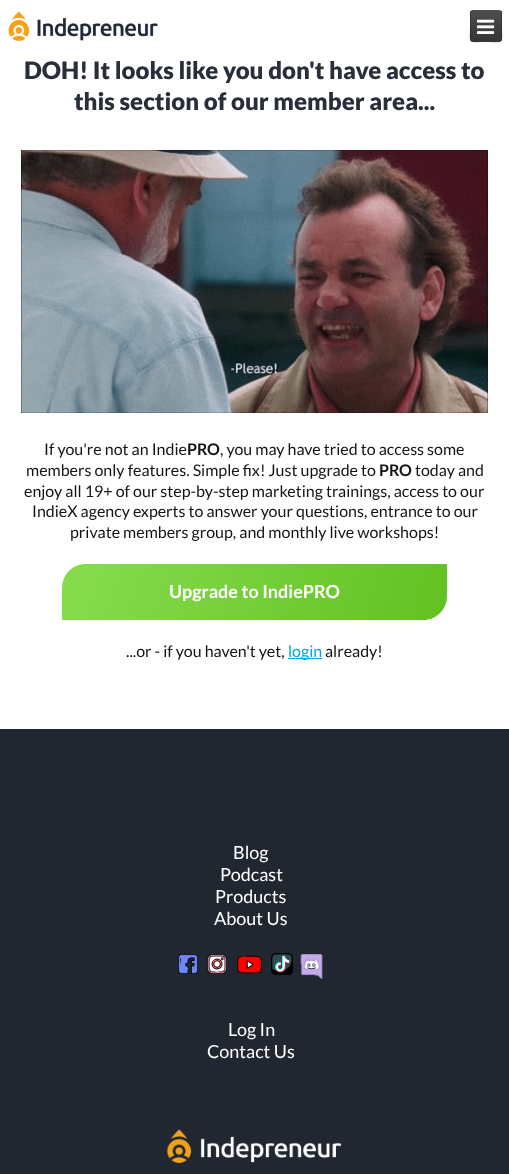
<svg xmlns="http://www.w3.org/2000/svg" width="509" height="1174">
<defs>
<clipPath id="clip1"><rect x="470" y="10" width="32" height="32" rx="3"/></clipPath>
<linearGradient id="g1" gradientUnits="userSpaceOnUse" x1="486" y1="11" x2="486" y2="41"><stop offset="0" stop-color="#4f4e4e"/><stop offset="1" stop-color="#353535"/></linearGradient>
<linearGradient id="g2" gradientUnits="userSpaceOnUse" x1="486" y1="41" x2="486" y2="71"><stop offset="0" stop-color="#4f4e4e"/><stop offset="1" stop-color="#353535"/></linearGradient>
<linearGradient id="g3" gradientUnits="userSpaceOnUse" x1="72" y1="533" x2="437" y2="651"><stop offset="0.06" stop-color="#85db4c"/><stop offset="1" stop-color="#62c122"/></linearGradient>
</defs>
<rect width="100%" height="100%" fill="#fff"/>
<image x="8" y="11" width="150" height="30" href="media/1.png"/>
<g clip-path="url(#clip1)">
<rect x="470" y="11" width="32" height="30" fill="url(#g1)"/>
<rect x="470" y="41" width="32" height="1" fill="url(#g2)"/>
</g>
<path d="M471 11c.5 0 1.5-.5 2-.5h26c.5 0 1.5 .5 2 .5" fill="none" stroke="#4f4e4e"/>
<path d="M501 11c1 1.5 .5 5 .5 6.5v8.5c0 18.5 3 15.5-15.5 15.5c-18.5 0-15.5 3-15.5-15.5v-8.5c0-1.5-.5-5 .5-6.5" fill="none" stroke="#353535"/>
<image x="477" y="19" width="18" height="15" href="media/2.png"/>
<text x="24" y="79" style="font-family:Lato;font-size:24px;font-weight:900;fill:#282f3a">DOH! It looks like you don't have access to</text>
<text x="74" y="110" style="font-family:Lato;font-size:24px;font-weight:900;fill:#282f3a">this section of our member area...</text>
<image x="21" y="150" width="467" height="263" href="media/3.png"/>
<text x="44" y="455" style="font-family:Lato;font-size:16px;fill:#141414">If you're not an Indie</text>
<text x="187" y="455" style="font-family:Lato;font-size:16px;font-weight:bold;fill:#141414">PRO</text>
<text x="220" y="455" style="font-family:Lato;font-size:16px;fill:#141414">, you may have tried to access some</text>
<text x="26" y="476" style="font-family:Lato;font-size:16px;fill:#141414">members only features. Simple fix! Just upgrade to</text>
<text x="379" y="476" style="font-family:Lato;font-size:16px;font-weight:bold;fill:#141414">PRO</text>
<text x="415" y="476" style="font-family:Lato;font-size:16px;fill:#141414">today and</text>
<text x="24" y="497" style="font-family:Lato;font-size:16px;fill:#141414">enjoy all 19+ of our step-by-step marketing trainings, access to our</text>
<text x="32" y="517" style="font-family:Lato;font-size:16px;fill:#141414">IndieX agency experts to answer your questions, entrance to our</text>
<text x="70" y="538" style="font-family:Lato;font-size:16px;fill:#141414">private members group, and monthly live workshops!</text>
<path d="M86 564h361v32c0 13.5-10.5 24-24 24h-361v-32c0-13.5 10.5-24 24-24z" fill="url(#g3)"/>
<text x="169" y="598" style="font-family:Lato;font-size:18px;font-weight:bold;fill:#fff">Upgrade to IndiePRO</text>
<text x="126" y="657" style="font-family:Lato;font-size:16px;fill:#141414">...or - if you haven't yet,</text>
<rect x="288" y="658" width="34" height="1" fill="#01aada"/>
<text x="288" y="657" style="font-family:Lato;font-size:16px;fill:#01aada">login</text>
<text x="325" y="657" style="font-family:Lato;font-size:16px;fill:#141414">already!</text>
<rect y="729" width="509" height="445" fill="#212730"/>
<text x="233" y="859" style="font-family:Lato;font-size:18px;fill:#fff">Blog</text>
<text x="220" y="881" style="font-family:Lato;font-size:18px;fill:#fff">Podcast</text>
<text x="215" y="903" style="font-family:Lato;font-size:18px;fill:#fff">Products</text>
<text x="214" y="925" style="font-family:Lato;font-size:18px;fill:#fff">About Us</text>
<image x="178" y="954" width="20" height="20" href="media/4.png"/>
<image x="207" y="954" width="20" height="20" href="media/5.png"/>
<image x="237" y="955" width="25" height="19" href="media/6.png"/>
<image x="271" y="953" width="22" height="22" href="media/7.png"/>
<image x="300" y="954" width="23" height="25" href="media/8.png"/>
<text x="228" y="1036" style="font-family:Lato;font-size:18px;fill:#fff">Log In</text>
<text x="207" y="1058" style="font-family:Lato;font-size:18px;fill:#fff">Contact Us</text>
<image x="166" y="1129" width="176" height="34" href="media/9.png"/>
</svg>
